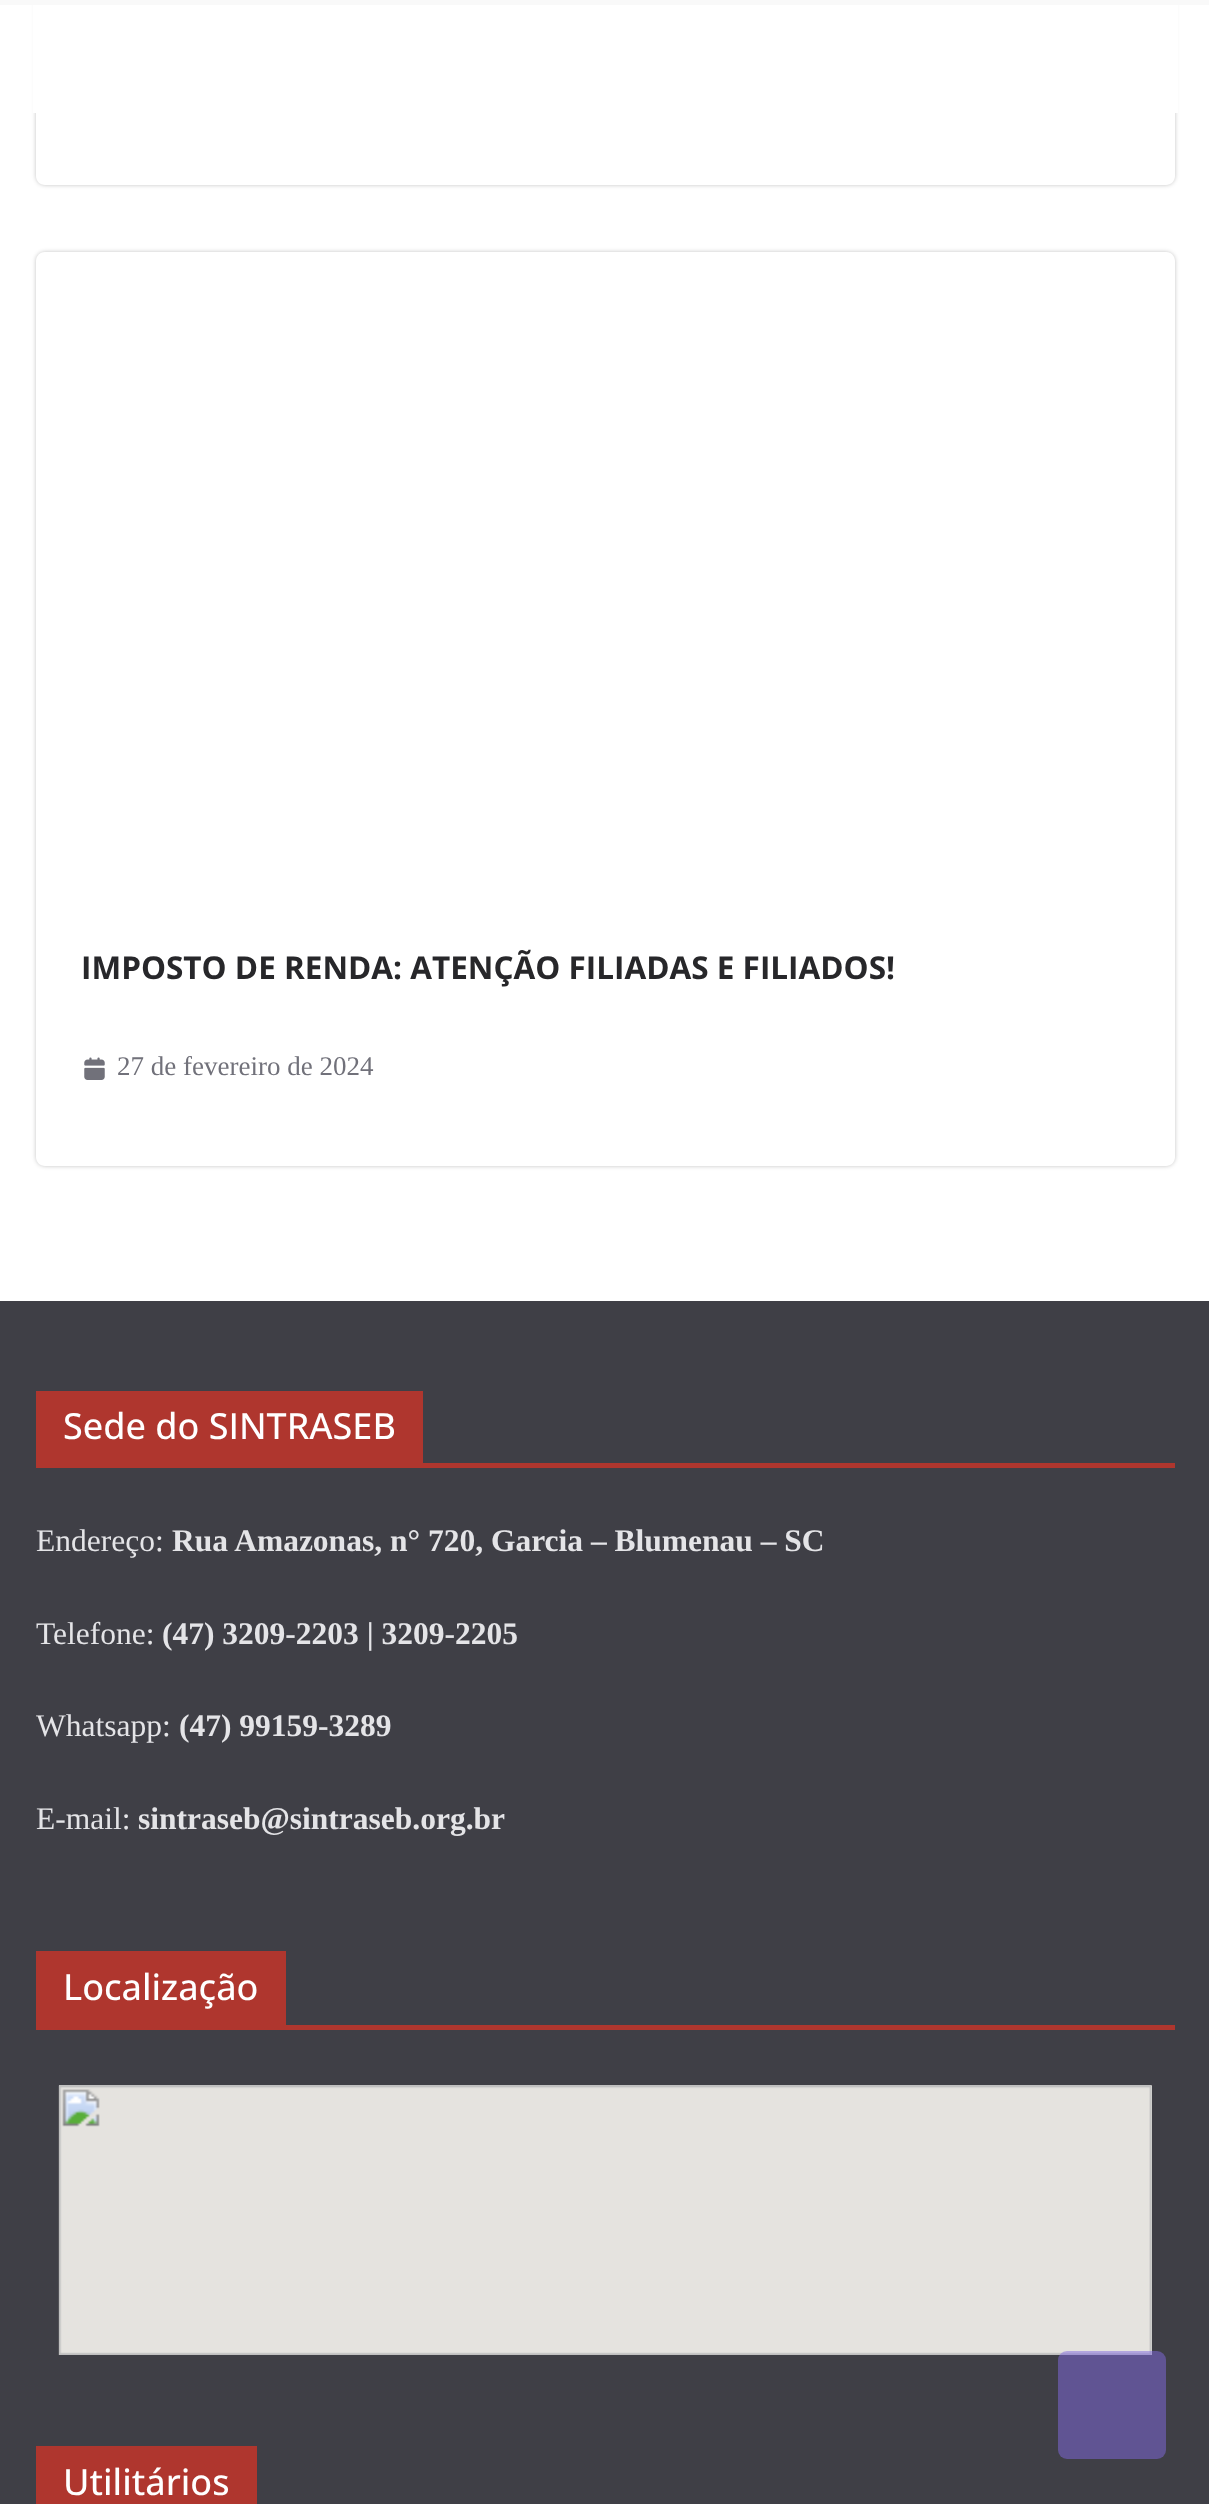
<svg xmlns="http://www.w3.org/2000/svg" width="1209" height="2504">
<defs>
<clipPath id="clip1"><path d="M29 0h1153v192h-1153zm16-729h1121c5 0 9 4 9 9v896c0 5-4 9-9 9h-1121c-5 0-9-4-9-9v-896c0-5 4-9 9-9z" clip-rule="evenodd"/></clipPath>
<clipPath id="clip2"><path d="M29 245h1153v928h-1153zm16 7h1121c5 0 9 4 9 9v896c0 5-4 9-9 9h-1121c-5 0-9-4-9-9v-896c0-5 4-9 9-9z" clip-rule="evenodd"/></clipPath>
</defs>
<rect width="100%" height="100%" fill="#fff"/>
<g clip-path="url(#clip1)">
<rect x="36" y="-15" width="1139" height="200" rx="9" fill="#0000003d" filter="blur(2px)"/>
</g>
<rect x="33" y="5" width="1145" height="108" fill="#fff"/>
<rect width="1209" height="5" fill="#f9f9f9"/>
<g clip-path="url(#clip2)">
<rect x="36" y="252" width="1139" height="914" rx="9" fill="#0000003d" filter="blur(2px)"/>
</g>
<text x="81" y="979" style="font-family:Open Sans;font-size:31.5px;font-weight:bold;fill:#27272a">IMPOSTO DE RENDA: ATENÇÃO FILIADAS E FILIADOS!</text>
<image x="84" y="1057" width="21" height="23" href="media/1.png"/>
<text x="117" y="1075" style="font-family:Liberation Serif;font-size:27px;fill:#71717a">27 de fevereiro de 2024</text>
<rect y="1301" width="1209" height="1203" fill="#3f3f46"/>
<rect x="36" y="1463" width="1139" height="5" fill="#af362e"/>
<rect x="36" y="1391" width="387" height="72" fill="#af362e"/>
<text x="63" y="1439" style="font-family:Open Sans;font-size:36px;font-weight:500;fill:#fff">Sede do SINTRASEB</text>
<text x="36" y="1551" style="font-family:Liberation Serif;font-size:31.5px;fill:#e4e4e7">Endereço:</text>
<text x="172" y="1551" style="font-family:Liberation Serif;font-size:31.5px;font-weight:bold;fill:#e4e4e7">Rua Amazonas, n° 720, Garcia – Blumenau – SC</text>
<text x="36" y="1644" style="font-family:Liberation Serif;font-size:31.5px;fill:#e4e4e7">Telefone:</text>
<text x="162" y="1644" style="font-family:Liberation Serif;font-size:31.5px;font-weight:bold;fill:#e4e4e7">(47) 3209-2203 | 3209-2205</text>
<text x="36" y="1736" style="font-family:Liberation Serif;font-size:31.5px;fill:#e4e4e7">Whatsapp:</text>
<text x="179" y="1736" style="font-family:Liberation Serif;font-size:31.5px;font-weight:bold;fill:#e4e4e7">(47) 99159-3289</text>
<text x="36" y="1829" style="font-family:Liberation Serif;font-size:31.5px;fill:#e4e4e7">E-mail:</text>
<text x="138" y="1829" style="font-family:Liberation Serif;font-size:31.5px;font-weight:bold;fill:#e4e4e7">sintraseb@sintraseb.org.br</text>
<rect x="36" y="2025" width="1139" height="5" fill="#af362e"/>
<rect x="36" y="1951" width="250" height="74" fill="#af362e"/>
<text x="63" y="2000" style="font-family:Open Sans;font-size:36px;font-weight:500;fill:#fff">Localização</text>
<image x="58" y="2085" width="1094" height="270" href="media/2.png"/>
<rect x="36" y="2446" width="221" height="58" fill="#af362e"/>
<text x="63" y="2495" style="font-family:Open Sans;font-size:36px;font-weight:500;fill:#fff">Utilitários</text>
<rect x="1058" y="2351" width="108" height="108" rx="9" fill="#8269df80"/>
</svg>
